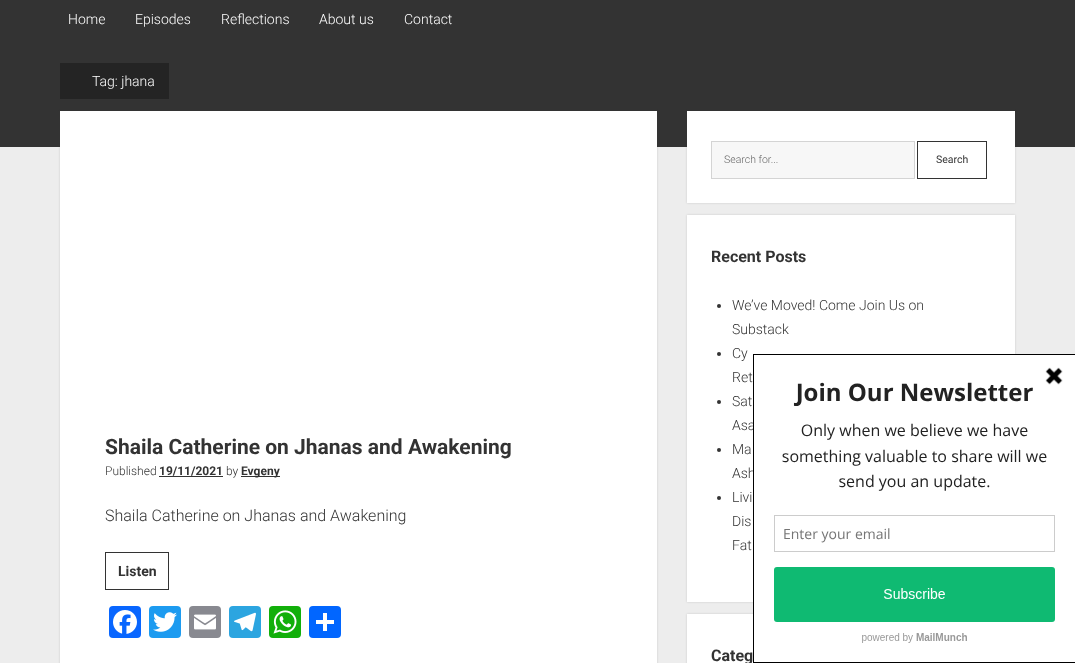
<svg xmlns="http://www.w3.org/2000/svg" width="1075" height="663">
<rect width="100%" height="100%" fill="#ededed"/>
<rect width="1075" height="147" fill="#333"/>
<text x="68" y="24" style="font-family:Roboto;font-size:14px;font-weight:300;fill:#fff">Home</text>
<text x="135" y="24" style="font-family:Roboto;font-size:14px;font-weight:300;fill:#fff">Episodes</text>
<text x="221" y="24" style="font-family:Roboto;font-size:14px;font-weight:300;fill:#fff">Reflections</text>
<text x="319" y="24" style="font-family:Roboto;font-size:14px;font-weight:300;fill:#fff">About us</text>
<text x="404" y="24" style="font-family:Roboto;font-size:14px;font-weight:300;fill:#fff">Contact</text>
<rect x="60" y="63" width="109" height="36" fill="#242424"/>
<text x="92" y="86" style="font-family:Roboto;font-size:14px;font-weight:300;fill:#fff">Tag: jhana</text>
<rect x="60" y="111" width="597" height="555" fill="#3a3a3a33" filter="blur(1px)"/>
<rect x="60" y="111" width="597" height="552" fill="#fff"/>
<text x="105" y="454" style="font-family:Roboto;font-size:21px;font-weight:bold;fill:#333">Shaila Catherine on Jhanas and Awakening</text>
<text x="105" y="475" style="font-family:Roboto;font-size:12px;font-weight:300;fill:#333">Published</text>
<text x="159" y="475" style="font-family:Roboto;font-size:12px;font-weight:bold;fill:#333">19/11/2021</text>
<rect x="159" y="476" width="64" height="1" fill="#333"/>
<text x="226" y="475" style="font-family:Roboto;font-size:12px;font-weight:300;fill:#333">by</text>
<rect x="241" y="476" width="39" height="1" fill="#333"/>
<text x="241" y="475" style="font-family:Roboto;font-size:12px;font-weight:bold;fill:#333">Evgeny</text>
<text x="105" y="521" style="font-family:Roboto;font-size:16px;font-weight:300;fill:#333">Shaila Catherine on Jhanas and Awakening</text>
<rect x="105.5" y="552.5" width="63" height="37" fill="none" stroke="#333"/>
<text x="118" y="576" style="font-family:Roboto;font-size:14px;font-weight:bold;fill:#333">Listen</text>
<rect x="109" y="606" width="32" height="32" rx="4" fill="#0866ff"/>
<image x="113" y="610" width="24" height="24" href="media/1.png"/>
<rect x="149" y="606" width="32" height="32" rx="4" fill="#1d9bf0"/>
<image x="153" y="612" width="24" height="20" href="media/2.png"/>
<rect x="189" y="606" width="32" height="32" rx="4" fill="#888990"/>
<image x="194" y="614" width="22" height="16" href="media/3.png"/>
<rect x="229" y="606" width="32" height="32" rx="4" fill="#2ca5e0"/>
<image x="234" y="612" width="22" height="20" href="media/4.png"/>
<rect x="269" y="606" width="32" height="32" rx="4" fill="#12af0a"/>
<image x="273" y="610" width="24" height="24" href="media/5.png"/>
<rect x="309" y="606" width="32" height="32" rx="4" fill="#0166ff"/>
<rect x="323" y="613" width="4" height="18" fill="#fff"/>
<rect x="316" y="620" width="18" height="4" fill="#fff"/>
<rect x="687" y="111" width="328" height="92" fill="#3a3a3a33" filter="blur(1px)"/>
<rect x="687" y="111" width="328" height="92" fill="#fff"/>
<rect x="711.5" y="141.5" width="203" height="37" fill="#f7f7f7" stroke="#d4d4d4"/>
<text x="724" y="163" style="font-family:Roboto;font-size:10.5px;font-weight:300;fill:#666">Search for...</text>
<rect x="917.5" y="141.5" width="69" height="37" fill="none" stroke="#333"/>
<text x="936" y="163" style="font-family:Roboto;font-size:10.5px;fill:#333">Search</text>
<rect x="687" y="215" width="328" height="387" fill="#3a3a3a33" filter="blur(1px)"/>
<rect x="687" y="215" width="328" height="387" fill="#fff"/>
<text x="711" y="262" style="font-family:Roboto;font-size:16px;font-weight:bold;fill:#333">Recent Posts</text>
<circle cx="719" cy="306" r="2" fill="#333"/>
<text x="732" y="310" style="font-family:Roboto;font-size:14px;font-weight:300;fill:#333">We’ve Moved! Come Join Us on</text>
<text x="732" y="334" style="font-family:Roboto;font-size:14px;font-weight:300;fill:#333">Substack</text>
<circle cx="719" cy="354" r="2" fill="#333"/>
<text x="732" y="358" style="font-family:Roboto;font-size:14px;font-weight:300;fill:#333">Cy</text>
<text x="732" y="382" style="font-family:Roboto;font-size:14px;font-weight:300;fill:#333">Ret</text>
<circle cx="719" cy="402" r="2" fill="#333"/>
<text x="732" y="406" style="font-family:Roboto;font-size:14px;font-weight:300;fill:#333">Sat</text>
<text x="732" y="430" style="font-family:Roboto;font-size:14px;font-weight:300;fill:#333">Asa</text>
<circle cx="719" cy="450" r="2" fill="#333"/>
<text x="732" y="454" style="font-family:Roboto;font-size:14px;font-weight:300;fill:#333">Ma</text>
<text x="732" y="478" style="font-family:Roboto;font-size:14px;font-weight:300;fill:#333">Ash</text>
<circle cx="719" cy="498" r="2" fill="#333"/>
<text x="732" y="502" style="font-family:Roboto;font-size:14px;font-weight:300;fill:#333">Livi</text>
<text x="732" y="526" style="font-family:Roboto;font-size:14px;font-weight:300;fill:#333">Dis</text>
<text x="732" y="550" style="font-family:Roboto;font-size:14px;font-weight:300;fill:#333">Fat</text>
<rect x="687" y="614" width="328" height="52" fill="#3a3a3a33" filter="blur(1px)"/>
<rect x="687" y="614" width="66" height="49" fill="#fff"/>
<text x="711" y="661" style="font-family:Roboto;font-size:16px;font-weight:bold;fill:#333">Categ</text>
<image x="753" y="354" width="322" height="309" href="media/6.png"/>
</svg>
